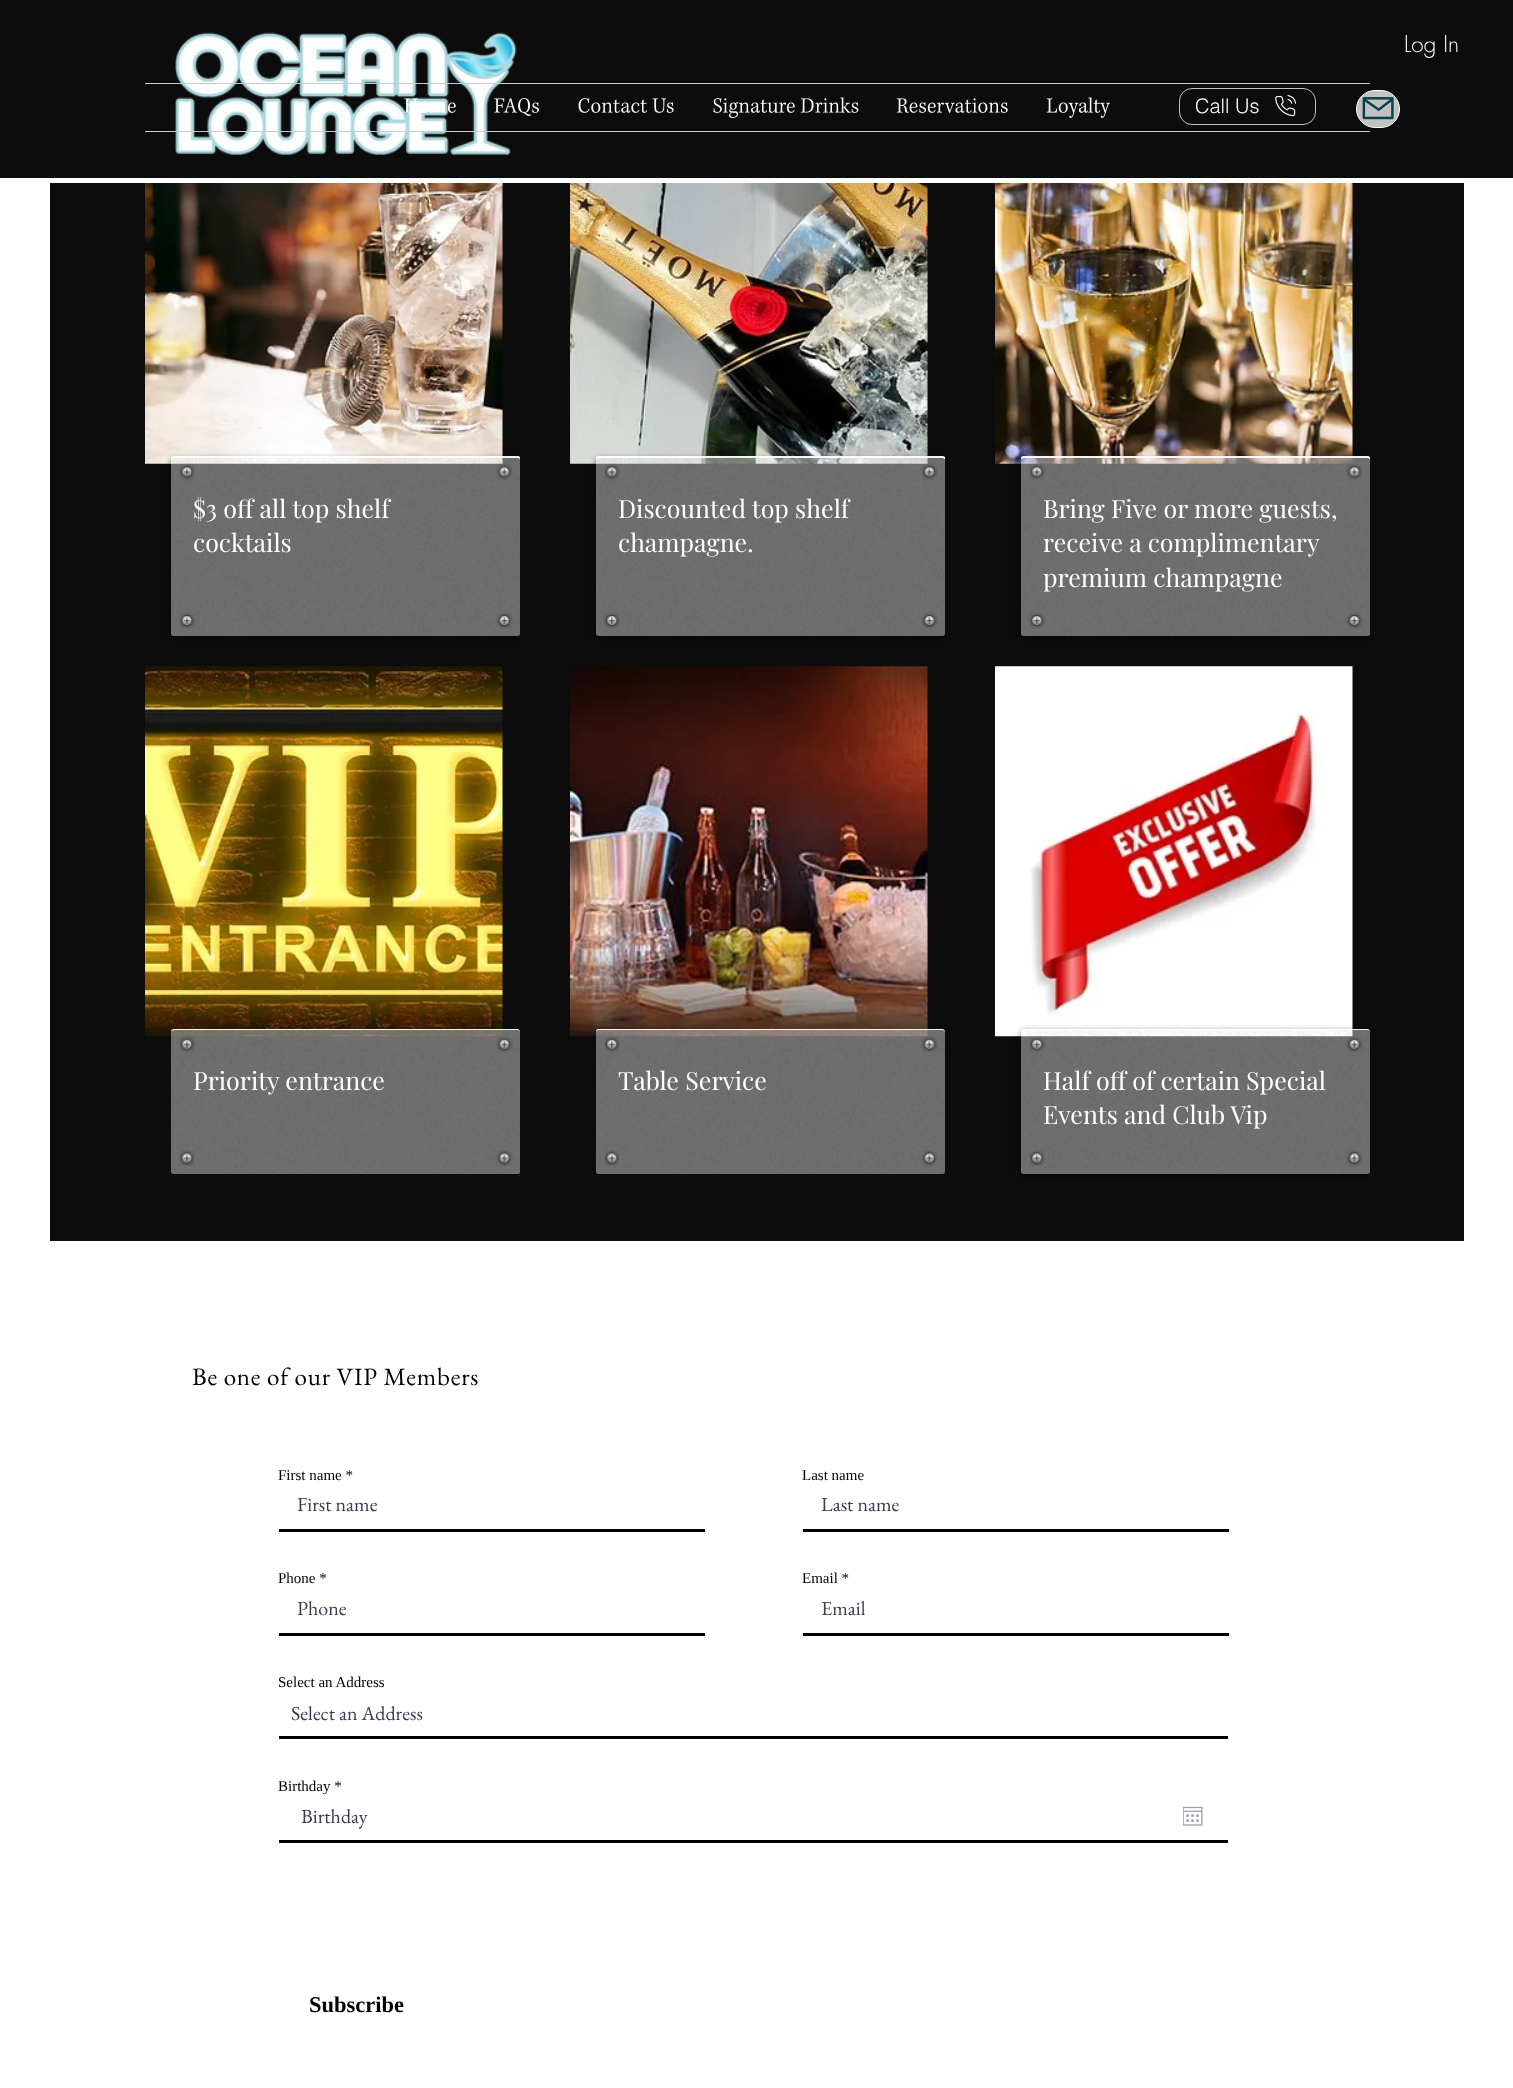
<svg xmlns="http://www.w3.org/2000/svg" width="1513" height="2088">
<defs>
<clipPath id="clip1"><rect x="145" y="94" width="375" height="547"/></clipPath>
<clipPath id="clip2"><path d="M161 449h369v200h-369zm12.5 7h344c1.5 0 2.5 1 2.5 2.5v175c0 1.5-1 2.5-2.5 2.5h-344c-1.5 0-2.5-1-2.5-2.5v-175c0-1.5 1-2.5 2.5-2.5z" clip-rule="evenodd"/></clipPath>
<clipPath id="clip3"><rect x="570" y="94" width="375" height="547"/></clipPath>
<clipPath id="clip4"><path d="M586 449h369v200h-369zm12.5 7h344c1.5 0 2.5 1 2.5 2.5v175c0 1.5-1 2.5-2.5 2.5h-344c-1.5 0-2.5-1-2.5-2.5v-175c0-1.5 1-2.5 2.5-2.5z" clip-rule="evenodd"/></clipPath>
<clipPath id="clip5"><rect x="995" y="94" width="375" height="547"/></clipPath>
<clipPath id="clip6"><path d="M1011 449h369v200h-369zm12.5 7h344c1.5 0 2.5 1 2.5 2.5v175c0 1.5-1 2.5-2.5 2.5h-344c-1.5 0-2.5-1-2.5-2.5v-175c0-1.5 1-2.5 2.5-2.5z" clip-rule="evenodd"/></clipPath>
<clipPath id="clip7"><rect x="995" y="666" width="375" height="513"/></clipPath>
<clipPath id="clip8"><path d="M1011 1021h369v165h-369zm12.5 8h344c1.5 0 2.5 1 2.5 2.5v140c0 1.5-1 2.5-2.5 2.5h-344c-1.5 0-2.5-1-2.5-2.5v-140c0-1.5 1-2.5 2.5-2.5z" clip-rule="evenodd"/></clipPath>
</defs>
<rect width="100%" height="100%" fill="#fff"/>
<rect width="1513" height="178" fill="#0d0c0c"/>
<image x="175" y="32" width="342" height="123" href="media/1.png"/>
<text x="1404" y="52" style="font-family:futura;font-size:22.5px;font-weight:300;fill:#fff">Log In</text>
<rect x="1179.5" y="88.5" width="136" height="36" rx="12.5" fill="none" stroke="#c3c2c2"/>
<text x="1195" y="113" style="font-family:helvetica;font-size:20px;font-weight:300;fill:#fff">Call Us</text>
<image x="1275" y="95" width="22" height="22" href="media/2.png"/>
<rect x="1356.5" y="90.5" width="43" height="37" rx="18.5" fill="#c3c2c2" stroke="#fff"/>
<image x="1362" y="97" width="32" height="23" href="media/3.png"/>
<rect x="145" y="83" width="1225" height="1" fill="#cacaca"/>
<rect x="145" y="131" width="1225" height="1" fill="#cacaca"/>
<image x="404" y="98" width="52" height="15" href="media/4.png"/>
<image x="494" y="98" width="45" height="18" href="media/5.png"/>
<image x="578" y="98" width="96" height="15" href="media/6.png"/>
<image x="713" y="97" width="146" height="21" href="media/7.png"/>
<image x="896" y="98" width="112" height="15" href="media/8.png"/>
<image x="1046" y="97" width="64" height="21" href="media/9.png"/>
<rect x="50" y="183" width="1414" height="1058" fill="#0d0c0c"/>
<image x="145" y="183" width="358" height="281" href="media/10.png"/>
<g clip-path="url(#clip1)">
<g clip-path="url(#clip2)">
<rect x="171" y="459" width="349" height="180" rx="2.5" fill="#00000087" filter="blur(3px)"/>
</g>
</g>
<rect x="171" y="456" width="349" height="180" rx="2.5" fill="#ffffff69"/>
<image x="171" y="456" width="349" height="180" href="media/11.png"/>
<path d="M174 458h344c1 0 2 1 2 2c0-2 0-4-2-4h-345l-2 1v3c0-1 1-2 3-2z" fill="#ffffffeb"/>
<image x="179" y="463" width="16" height="17" href="media/12.png"/>
<image x="496" y="463" width="17" height="17" href="media/13.png"/>
<text x="193" y="518" style="font-family:Playfair Display;font-size:25px;fill:#fff">$3 off all top shelf</text>
<text x="193" y="552" style="font-family:Playfair Display;font-size:25px;fill:#fff">cocktails</text>
<image x="179" y="612" width="16" height="17" href="media/14.png"/>
<image x="496" y="612" width="17" height="17" href="media/15.png"/>
<image x="145" y="666" width="358" height="371" href="media/16.png"/>
<rect x="171" y="1029" width="349" height="145" rx="2.5" fill="#ffffff69"/>
<image x="172" y="1029" width="348" height="144" href="media/17.png"/>
<path d="M174 1030h344c1 0 2 1 2 2v-1l-2-2h-344c-2 0-3 1-3 3c0-1 1-2 3-2z" fill="#ffffffeb"/>
<image x="179" y="1036" width="16" height="17" href="media/18.png"/>
<image x="496" y="1036" width="17" height="17" href="media/19.png"/>
<text x="193" y="1090" style="font-family:Playfair Display;font-size:25px;fill:#fff">Priority entrance</text>
<image x="179" y="1150" width="16" height="16" href="media/20.png"/>
<image x="496" y="1150" width="17" height="17" href="media/21.png"/>
<image x="570" y="183" width="358" height="281" href="media/22.png"/>
<g clip-path="url(#clip3)">
<g clip-path="url(#clip4)">
<rect x="596" y="459" width="349" height="180" rx="2.5" fill="#00000087" filter="blur(3px)"/>
</g>
</g>
<rect x="596" y="456" width="349" height="180" rx="2.5" fill="#ffffff69"/>
<image x="596" y="456" width="349" height="180" href="media/23.png"/>
<path d="M599 458h343c2 0 3 1 3 2v-3l-2-1h-345c-2 0-2 2-2 4c0-1 1-2 3-2z" fill="#ffffffeb"/>
<image x="604" y="463" width="16" height="17" href="media/24.png"/>
<image x="921" y="463" width="17" height="17" href="media/25.png"/>
<text x="618" y="518" style="font-family:Playfair Display;font-size:25px;fill:#fff">Discounted top shelf</text>
<text x="618" y="552" style="font-family:Playfair Display;font-size:25px;fill:#fff">champagne.</text>
<image x="604" y="612" width="16" height="17" href="media/14.png"/>
<image x="921" y="612" width="17" height="17" href="media/15.png"/>
<image x="570" y="666" width="358" height="371" href="media/26.png"/>
<rect x="596" y="1029" width="349" height="145" rx="2.5" fill="#ffffff69"/>
<image x="597" y="1029" width="348" height="144" href="media/27.png"/>
<path d="M599 1030h343c2 0 3 1 3 2v-1l-2-2h-345c-1 0-2 1-2 3c0-1 1-2 3-2z" fill="#ffffffeb"/>
<image x="604" y="1036" width="16" height="17" href="media/28.png"/>
<image x="921" y="1036" width="17" height="17" href="media/29.png"/>
<text x="618" y="1090" style="font-family:Playfair Display;font-size:25px;fill:#fff">Table Service</text>
<image x="604" y="1150" width="16" height="16" href="media/20.png"/>
<image x="921" y="1150" width="17" height="17" href="media/21.png"/>
<image x="995" y="183" width="358" height="281" href="media/30.png"/>
<g clip-path="url(#clip5)">
<g clip-path="url(#clip6)">
<rect x="1021" y="459" width="349" height="180" rx="2.5" fill="#00000087" filter="blur(3px)"/>
</g>
</g>
<rect x="1021" y="456" width="349" height="180" rx="2.5" fill="#ffffff69"/>
<image x="1021" y="456" width="349" height="180" href="media/31.png"/>
<path d="M1024 458h344c1 0 2 1 2 2v-3l-2-1h-344c-3 0-3 2-3 4c0-1 1-2 3-2z" fill="#ffffffeb"/>
<image x="1029" y="463" width="16" height="17" href="media/32.png"/>
<image x="1346" y="464" width="17" height="16" href="media/33.png"/>
<text x="1043" y="518" style="font-family:Playfair Display;font-size:25px;fill:#fff">Bring Five or more guests,</text>
<text x="1043" y="552" style="font-family:Playfair Display;font-size:25px;fill:#fff">receive a complimentary</text>
<text x="1043" y="587" style="font-family:Playfair Display;font-size:25px;fill:#fff">premium champagne</text>
<image x="1029" y="612" width="16" height="17" href="media/14.png"/>
<image x="1346" y="612" width="17" height="17" href="media/15.png"/>
<image x="995" y="666" width="358" height="371" href="media/34.png"/>
<g clip-path="url(#clip7)">
<g clip-path="url(#clip8)">
<rect x="1021" y="1031" width="349" height="145" rx="2.5" fill="#00000087" filter="blur(3px)"/>
</g>
</g>
<rect x="1021" y="1029" width="349" height="145" rx="2.5" fill="#ffffff69"/>
<image x="1021" y="1029" width="349" height="144" href="media/35.png"/>
<path d="M1024 1030h344c1 0 2 1 2 2v-1l-2-2h-344c-2 0-3 1-3 3c0-1 1-2 3-2z" fill="#ffffffeb"/>
<image x="1029" y="1036" width="16" height="17" href="media/36.png"/>
<image x="1346" y="1036" width="17" height="17" href="media/37.png"/>
<text x="1043" y="1090" style="font-family:Playfair Display;font-size:25px;fill:#fff">Half off of certain Special</text>
<text x="1043" y="1124" style="font-family:Playfair Display;font-size:25px;fill:#fff">Events and Club Vip</text>
<image x="1029" y="1150" width="16" height="16" href="media/20.png"/>
<image x="1346" y="1150" width="17" height="17" href="media/21.png"/>
<text x="192" y="1385" style="font-family:EB Garamond;font-size:25px;letter-spacing:0.75px;fill:#000">Be one of our VIP Members</text>
<text x="278" y="1480" style="font-family:Liberation Serif;font-size:15px;fill:#000">First name *</text>
<rect x="279" y="1529" width="426" height="3" fill="#000"/>
<text x="297" y="1511" style="font-family:EB Garamond;font-size:20px;fill:#373b4d">First name</text>
<text x="802" y="1480" style="font-family:Liberation Serif;font-size:15px;fill:#000">Last name</text>
<rect x="803" y="1529" width="426" height="3" fill="#000"/>
<text x="821" y="1511" style="font-family:EB Garamond;font-size:20px;fill:#373b4d">Last name</text>
<text x="278" y="1583" style="font-family:Liberation Serif;font-size:15px;fill:#000">Phone *</text>
<rect x="279" y="1633" width="426" height="3" fill="#000"/>
<text x="297" y="1615" style="font-family:EB Garamond;font-size:20px;fill:#373b4d">Phone</text>
<text x="802" y="1583" style="font-family:Liberation Serif;font-size:15px;fill:#000">Email *</text>
<rect x="803" y="1633" width="426" height="3" fill="#000"/>
<text x="821" y="1615" style="font-family:EB Garamond;font-size:20px;fill:#373b4d">Email</text>
<text x="278" y="1687" style="font-family:Liberation Serif;font-size:15px;fill:#000">Select an Address</text>
<rect x="279" y="1736" width="949" height="3" fill="#000"/>
<text x="291" y="1720" style="font-family:EB Garamond;font-size:20px;fill:#373b4d">Select an Address</text>
<text x="278" y="1791" style="font-family:Liberation Serif;font-size:15px;fill:#000">Birthday *</text>
<rect x="323" y="1794" width="3" height="1" fill="#ffffffbf"/>
<rect x="279" y="1840" width="949" height="3" fill="#000"/>
<text x="301" y="1823" style="font-family:EB Garamond;font-size:20px;fill:#373b4d">Birthday</text>
<image x="1183" y="1806" width="20" height="20" href="media/38.png"/>
<text x="309" y="2012" style="font-family:Liberation Serif;font-size:22.5px;font-weight:bold;fill:#000">Subscribe</text>
</svg>
